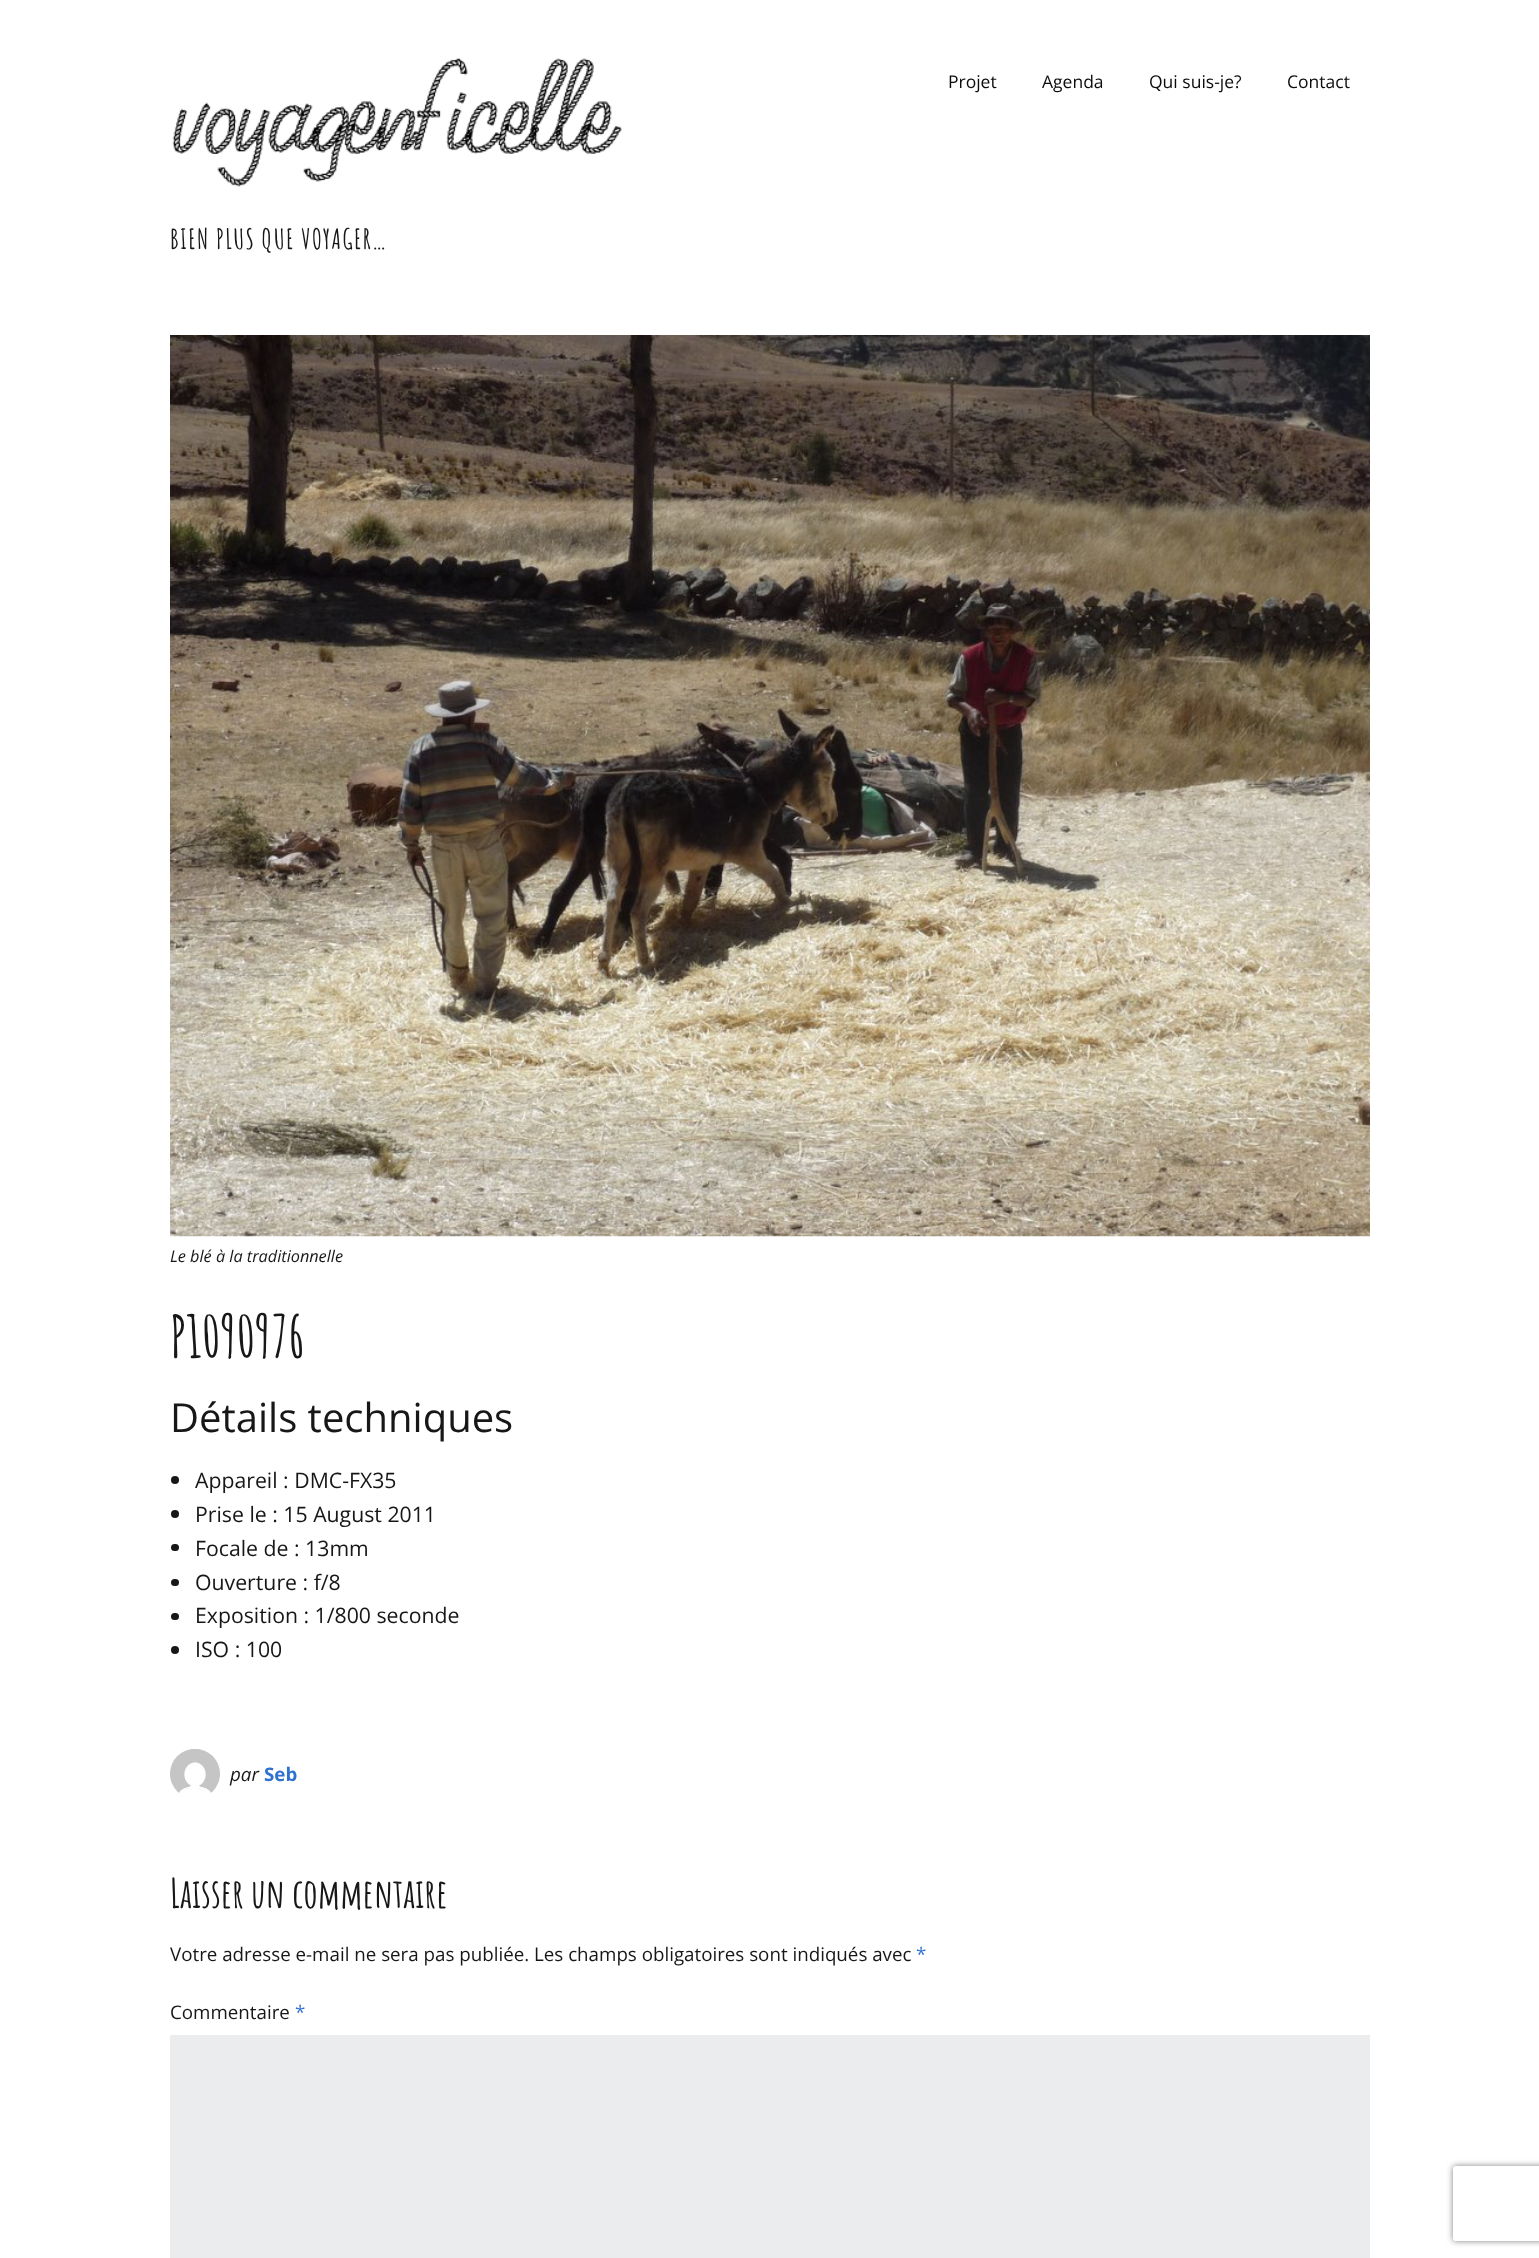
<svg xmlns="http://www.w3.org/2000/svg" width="1539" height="2258">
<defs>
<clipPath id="clip1"><path d="M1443 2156h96v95h-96zm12.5 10h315c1.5 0 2.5 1 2.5 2.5v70c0 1.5-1 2.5-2.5 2.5h-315c-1.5 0-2.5-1-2.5-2.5v-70c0-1.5 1-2.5 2.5-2.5z" clip-rule="evenodd"/></clipPath>
</defs>
<rect width="100%" height="100%" fill="#fff"/>
<text x="948" y="88" style="font-family:Open Sans;font-size:17.5px;fill:#0c0c0c">Projet</text>
<text x="1042" y="88" style="font-family:Open Sans;font-size:17.5px;fill:#0c0c0c">Agenda</text>
<text x="1149" y="88" style="font-family:Open Sans;font-size:17.5px;fill:#0c0c0c">Qui suis-je?</text>
<text x="1287" y="88" style="font-family:Open Sans;font-size:17.5px;fill:#0c0c0c">Contact</text>
<image x="172" y="58" width="450" height="129" href="media/1.png"/>
<text x="170" y="249" style="font-family:Amatic SC;font-size:27.5px;font-weight:bold;letter-spacing:1.25px;fill:#171717">BIEN PLUS QUE VOYAGER…</text>
<image x="170" y="335" width="1200" height="902" href="media/2.png"/>
<text x="170" y="1262" style="font-family:Open Sans;font-size:16.25px;font-style:italic;fill:#171717">Le blé à la traditionnelle</text>
<text x="170" y="1358" style="font-family:Amatic SC;font-size:57.5px;font-weight:bold;fill:#171717">P1090976</text>
<text x="170" y="1432" style="font-family:Open Sans;font-size:40px;fill:#171717">Détails techniques</text>
<circle cx="175" cy="1480" r="4" fill="#171717"/>
<text x="195" y="1488" style="font-family:Open Sans;font-size:21.25px;fill:#171717">Appareil : DMC-FX35</text>
<circle cx="175" cy="1514" r="4" fill="#171717"/>
<text x="195" y="1522" style="font-family:Open Sans;font-size:21.25px;fill:#171717">Prise le : 15 August 2011</text>
<rect x="171" y="1544" width="8" height="7" rx="3.5" fill="#171717"/>
<text x="195" y="1556" style="font-family:Open Sans;font-size:21.25px;fill:#171717">Focale de : 13mm</text>
<rect x="171" y="1579" width="8" height="7" rx="3.5" fill="#171717"/>
<text x="195" y="1590" style="font-family:Open Sans;font-size:21.25px;fill:#171717">Ouverture : f/8</text>
<rect x="171" y="1613" width="8" height="7" rx="3.5" fill="#171717"/>
<text x="195" y="1623" style="font-family:Open Sans;font-size:21.25px;fill:#171717">Exposition : 1/800 seconde</text>
<circle cx="175" cy="1650" r="4" fill="#171717"/>
<text x="195" y="1657" style="font-family:Open Sans;font-size:21.25px;fill:#171717">ISO : 100</text>
<image x="170" y="1749" width="50" height="44" href="media/3.png"/>
<text x="230" y="1781" style="font-family:Open Sans;font-size:18.75px;font-style:italic;fill:#171717">par</text>
<text x="264" y="1781" style="font-family:Open Sans;font-size:18.75px;font-weight:bold;fill:#3070d1">Seb</text>
<text x="170" y="1908" style="font-family:Amatic SC;font-size:40px;font-weight:bold;fill:#171717">Laisser un commentaire</text>
<text x="170" y="1961" style="font-family:Open Sans;font-size:18.75px;fill:#171717">Votre adresse e-mail ne sera pas publiée. Les champs obligatoires sont indiqués avec</text>
<text x="916" y="1961" style="font-family:Open Sans;font-size:18.75px;fill:#3070d1">*</text>
<text x="170" y="2019" style="font-family:Open Sans;font-size:18.75px;fill:#171717">Commentaire</text>
<text x="295" y="2019" style="font-family:Open Sans;font-size:18.75px;fill:#3070d1">*</text>
<rect x="170" y="2035" width="1200" height="223" fill="#eaecee"/>
<g clip-path="url(#clip1)">
<rect x="1453" y="2166" width="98" height="75" rx="2.5" fill="#808080" filter="blur(3px)"/>
</g>
</svg>
